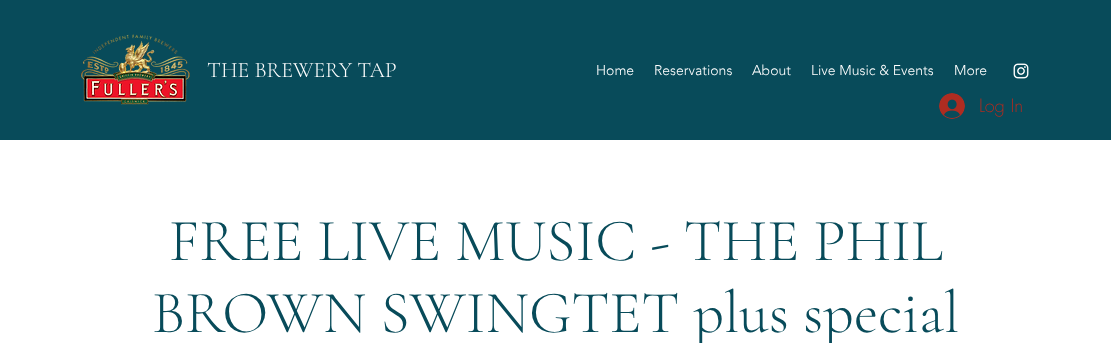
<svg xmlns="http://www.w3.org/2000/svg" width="1111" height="343">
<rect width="100%" height="100%" fill="#fff"/>
<rect width="1111" height="140" fill="#084b5a"/>
<image x="80" y="34" width="110" height="71" href="media/1.png"/>
<text x="207" y="77" style="font-family:Cormorant Garamond;font-size:22px;font-weight:300;fill:#fff">THE BREWERY TAP</text>
<text x="596" y="75" style="font-family:'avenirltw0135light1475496';font-size:14px;font-weight:300;fill:#fff">Home</text>
<text x="654" y="75" style="font-family:'avenirltw0135light1475496';font-size:14px;font-weight:300;fill:#fff">Reservations</text>
<text x="752" y="75" style="font-family:'avenirltw0135light1475496';font-size:14px;font-weight:300;fill:#fff">About</text>
<text x="811" y="75" style="font-family:'avenirltw0135light1475496';font-size:14px;font-weight:300;fill:#fff">Live Music &amp; Events</text>
<text x="954" y="75" style="font-family:'avenirltw0135light1475496';font-size:14px;font-weight:300;fill:#fff">More</text>
<image x="1013" y="63" width="16" height="16" href="media/2.png"/>
<image x="939" y="93" width="26" height="26" href="media/3.png"/>
<text x="979" y="112" style="font-family:futura;font-size:18px;font-weight:300;fill:#ae2c21">Log In</text>
<text x="169" y="260" style="font-family:Cormorant Garamond;font-size:60px;font-weight:300;fill:#084b5a">FREE LIVE MUSIC - THE PHIL</text>
<text x="152" y="332" style="font-family:Cormorant Garamond;font-size:60px;font-weight:300;fill:#084b5a">BROWN SWINGTET plus special</text>
</svg>
